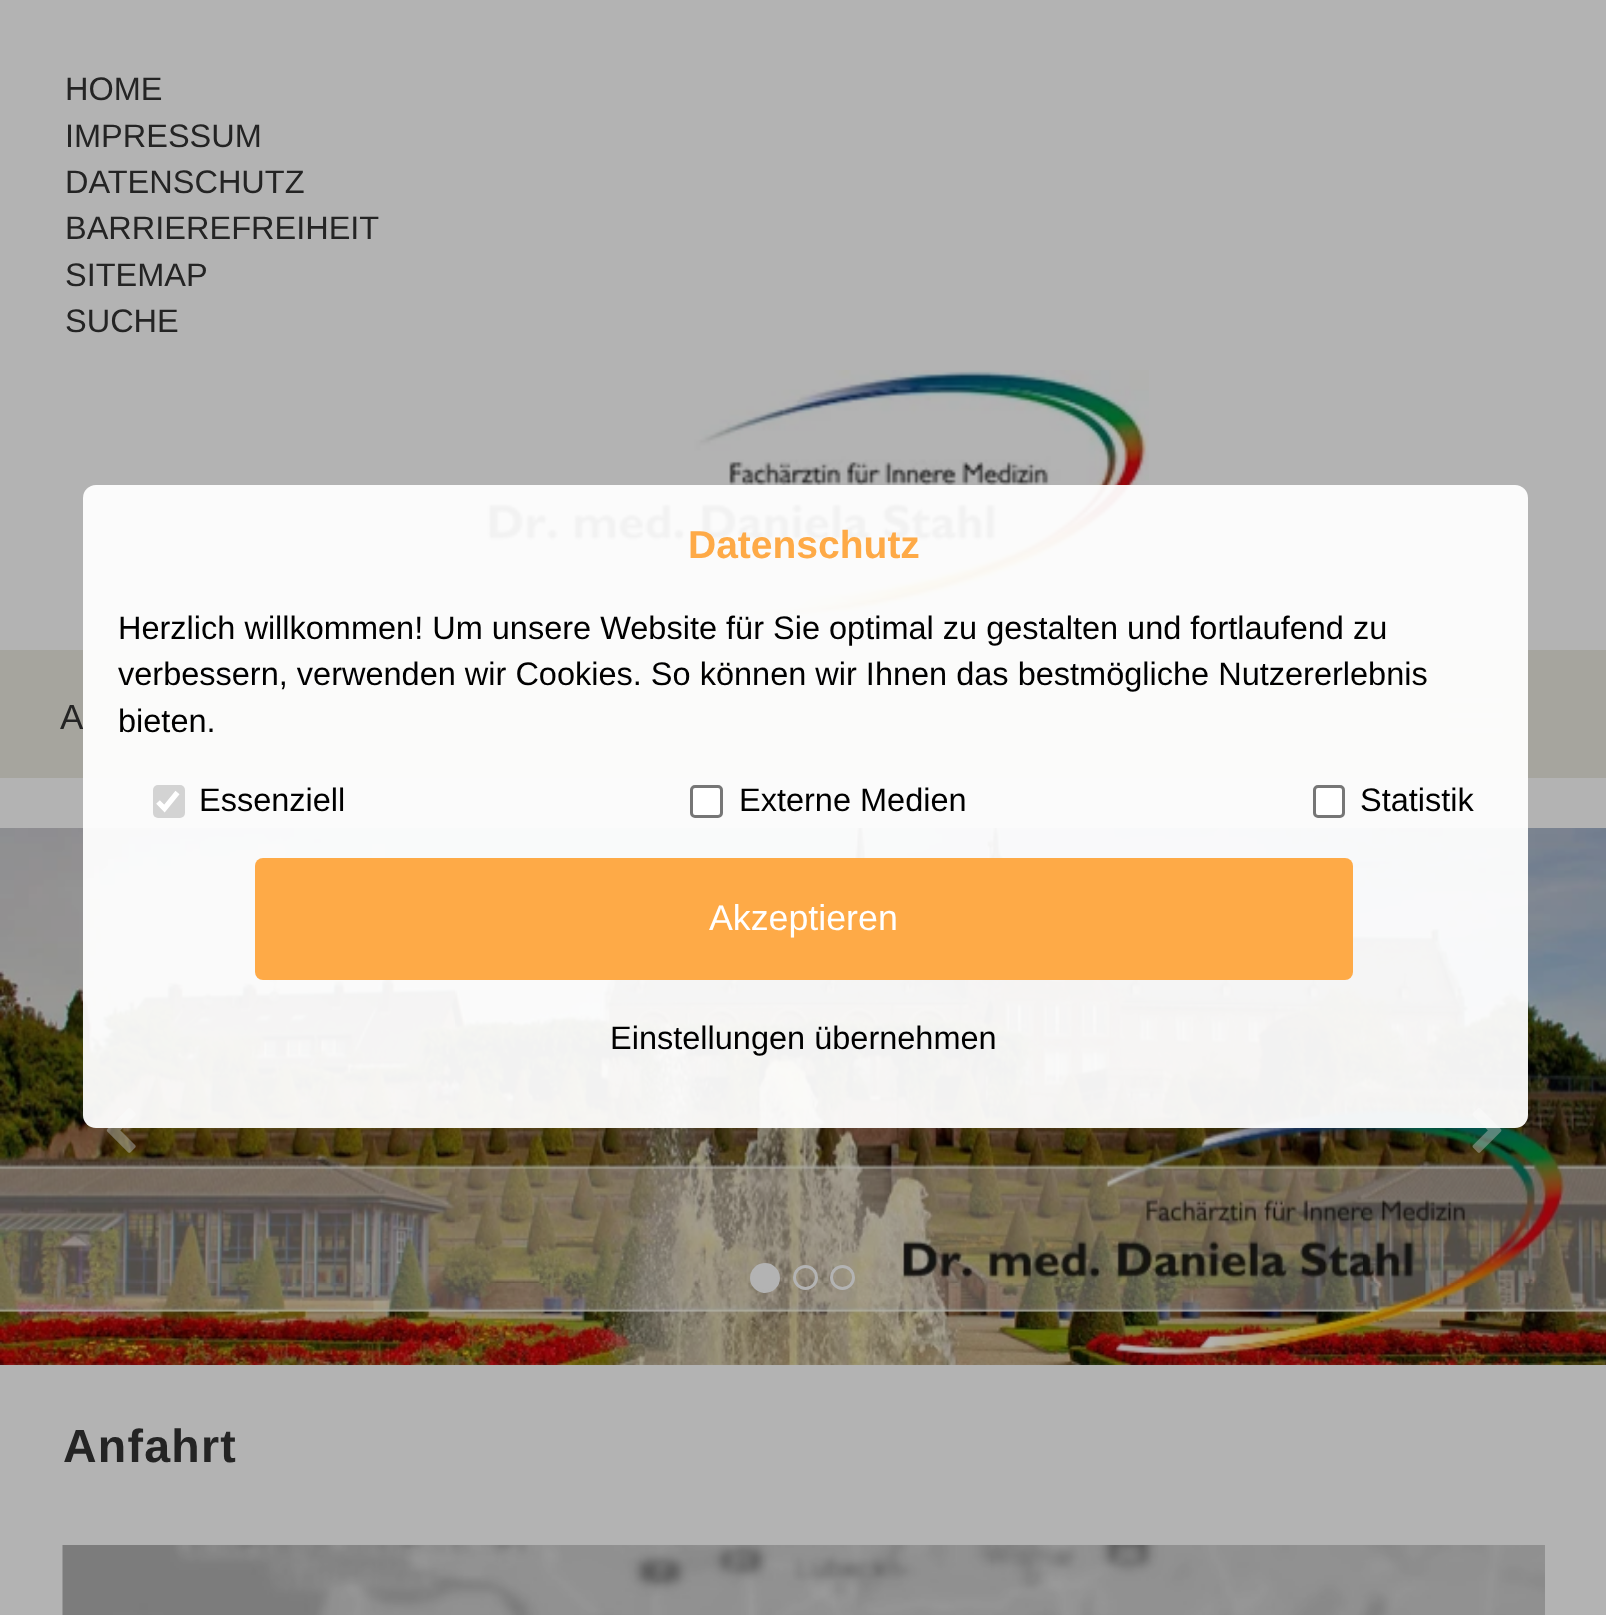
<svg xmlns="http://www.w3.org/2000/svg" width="1606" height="1615">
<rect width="100%" height="100%" fill="#b3b3b3"/>
<text x="65" y="100" style="font-family:Liberation Sans;font-size:32.5px;fill:#242424">HOME</text>
<text x="65" y="147" style="font-family:Liberation Sans;font-size:32.5px;fill:#242424">IMPRESSUM</text>
<text x="65" y="193" style="font-family:Liberation Sans;font-size:32.5px;fill:#242424">DATENSCHUTZ</text>
<text x="65" y="239" style="font-family:Liberation Sans;font-size:32.5px;fill:#242424">BARRIEREFREIHEIT</text>
<text x="65" y="286" style="font-family:Liberation Sans;font-size:32.5px;fill:#242424">SITEMAP</text>
<text x="65" y="332" style="font-family:Liberation Sans;font-size:32.5px;fill:#242424">SUCHE</text>
<image x="486" y="370" width="663" height="250" href="media/1.png"/>
<rect y="650" width="1606" height="128" fill="#a6a59e"/>
<text x="60" y="729" style="font-family:Liberation Sans;font-size:35px;fill:#242424">A</text>
<rect x="1448" y="698" width="55" height="5" rx="2.5" fill="#b3b3b3"/>
<rect x="1448" y="713" width="55" height="5" rx="2.5" fill="#b3b3b3"/>
<rect x="1448" y="728" width="55" height="5" rx="2.5" fill="#b3b3b3"/>
<image x="0" y="828" width="1606" height="537" href="media/2.png"/>
<image x="106" y="1107" width="30" height="46" href="media/3.png"/>
<image x="1472" y="1107" width="30" height="46" href="media/4.png"/>
<circle cx="765" cy="1278" r="13.5" fill="#b3b3b3" stroke="#b3b3b3" stroke-width="3"/>
<circle cx="805.5" cy="1277.5" r="11" fill="none" stroke="#b3b3b3" stroke-width="3"/>
<circle cx="842.5" cy="1277.5" r="11" fill="none" stroke="#b3b3b3" stroke-width="3"/>
<text x="63" y="1462" style="font-family:Liberation Sans;font-size:46.5px;font-weight:bold;letter-spacing:1.25px;fill:#242424">Anfahrt</text>
<image x="62" y="1545" width="1483" height="70" href="media/5.png"/>
<rect x="83" y="485" width="1445" height="643" rx="13" fill="#fffffff2"/>
<text x="688" y="558" style="font-family:Liberation Sans;font-size:39px;font-weight:bold;fill:#feaa47">Datenschutz</text>
<text x="118" y="639" style="font-family:Liberation Sans;font-size:32.5px;fill:#000">Herzlich willkommen! Um unsere Website für Sie optimal zu gestalten und fortlaufend zu</text>
<text x="118" y="685" style="font-family:Liberation Sans;font-size:32.5px;fill:#000">verbessern, verwenden wir Cookies. So können wir Ihnen das bestmögliche Nutzererlebnis</text>
<text x="118" y="732" style="font-family:Liberation Sans;font-size:32.5px;fill:#000">bieten.</text>
<rect x="153" y="785" width="32" height="33" rx="5" fill="#d3d3d3"/>
<path d="M158 802l6.5 6.5l13-16" fill="none" stroke="#fff" stroke-width="5.2"/>
<text x="199" y="811" style="font-family:Liberation Sans;font-size:32.5px;fill:#000">Essenziell</text>
<rect x="691.5" y="786.5" width="30" height="30" rx="3.5" fill="#fff" stroke="#767676" stroke-width="3"/>
<text x="739" y="811" style="font-family:Liberation Sans;font-size:32.5px;fill:#000">Externe Medien</text>
<rect x="1314.5" y="786.5" width="29" height="30" rx="3.5" fill="#fff" stroke="#767676" stroke-width="3"/>
<text x="1360" y="811" style="font-family:Liberation Sans;font-size:32.5px;fill:#000">Statistik</text>
<rect x="255" y="858" width="1098" height="122" rx="8" fill="#feaa47"/>
<text x="709" y="930" style="font-family:Liberation Sans;font-size:35.75px;fill:#fff">Akzeptieren</text>
<text x="610" y="1049" style="font-family:Liberation Sans;font-size:32.5px;fill:#000">Einstellungen übernehmen</text>
</svg>
